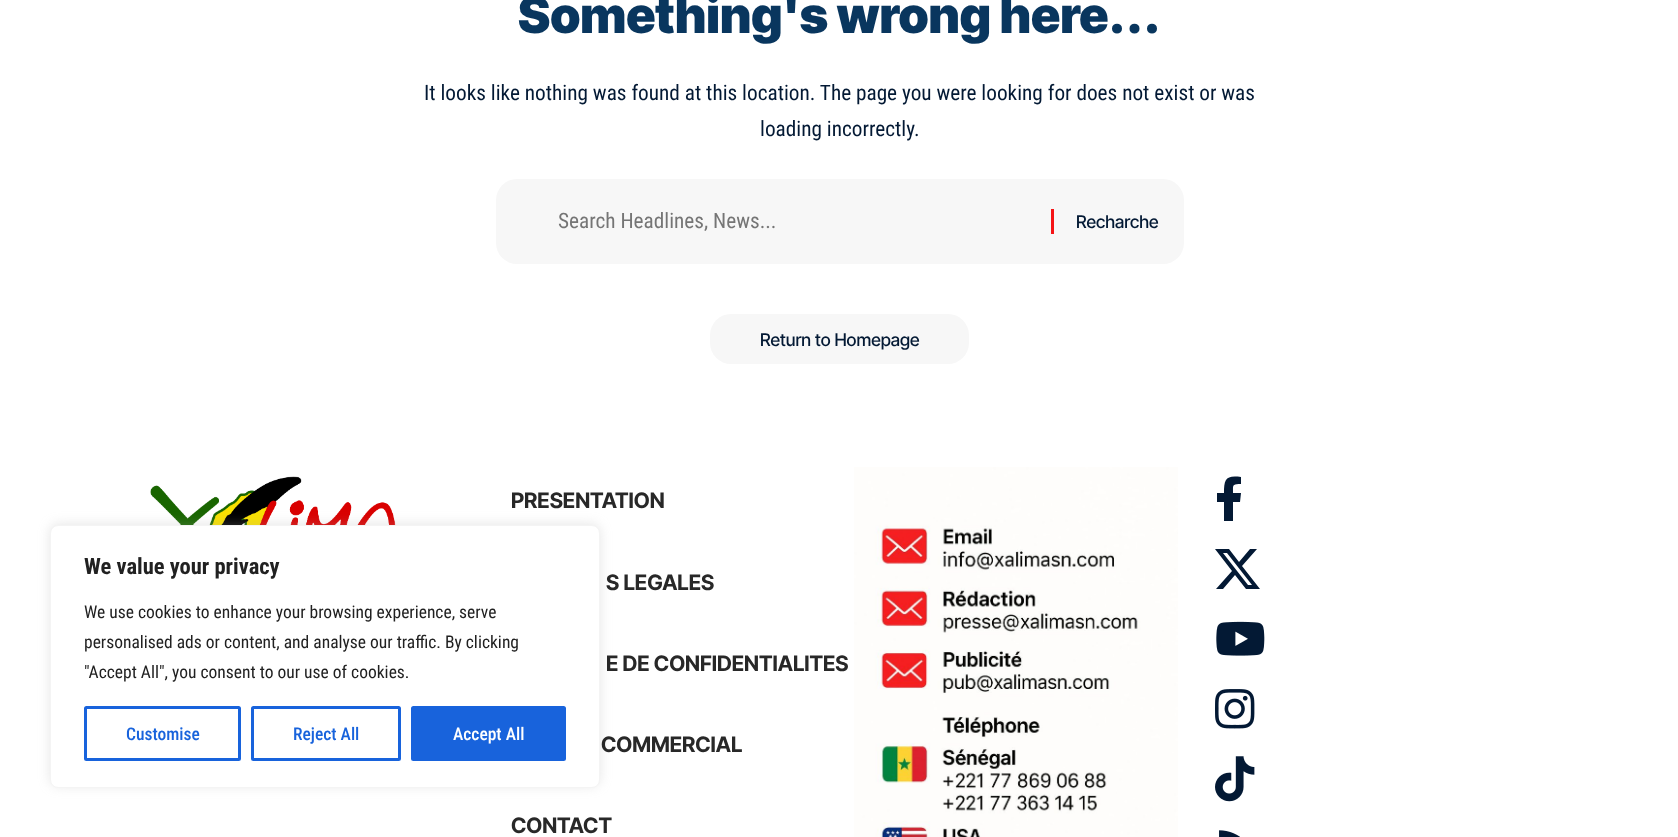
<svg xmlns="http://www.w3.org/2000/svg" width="1678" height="837">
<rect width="100%" height="100%" fill="#fff"/>
<image x="150" y="476" width="246" height="49" href="media/1.png"/>
<rect x="50" y="524" width="550" height="262" rx="8" fill="#acabab4d" filter="blur(6px)"/>
<rect x="50.5" y="525.5" width="549" height="262" rx="7.5" fill="#fff" stroke="#f4f4f4"/>
<text x="84" y="574" style="font-family:Roboto Condensed;font-size:22.5px;font-weight:bold;fill:#212121">We value your privacy</text>
<text x="84" y="618" style="font-family:Roboto Condensed;font-size:17.5px;fill:#212121">We use cookies to enhance your browsing experience, serve</text>
<text x="84" y="648" style="font-family:Roboto Condensed;font-size:17.5px;fill:#212121">personalised ads or content, and analyse our traffic. By clicking</text>
<text x="84" y="678" style="font-family:Roboto Condensed;font-size:17.5px;fill:#212121">"Accept All", you consent to our use of cookies.</text>
<rect x="85.5" y="707.5" width="154" height="52" rx="1" fill="none" stroke="#1863dc" stroke-width="3"/>
<text x="126" y="740" style="font-family:Roboto Condensed;font-size:17.5px;font-weight:500;fill:#1863dc">Customise</text>
<rect x="252.5" y="707.5" width="147" height="52" rx="1" fill="none" stroke="#1863dc" stroke-width="3"/>
<text x="293" y="740" style="font-family:Roboto Condensed;font-size:17.5px;font-weight:500;fill:#1863dc">Reject All</text>
<rect x="412.5" y="707.5" width="152" height="52" rx="1" fill="#1863dc" stroke="#1863dc" stroke-width="3"/>
<text x="453" y="740" style="font-family:Roboto Condensed;font-size:17.5px;font-weight:500;fill:#fff">Accept All</text>
<text x="518" y="33" style="font-family:Inter Tight;font-size:50px;font-weight:900;fill:#09365e">Something's wrong here...</text>
<text x="424" y="100" style="font-family:Roboto Condensed;font-size:21.25px;fill:#031934">It looks like nothing was found at this location. The page you were looking for does not exist or was</text>
<text x="760" y="136" style="font-family:Roboto Condensed;font-size:21.25px;fill:#031934">loading incorrectly.</text>
<rect x="496" y="179" width="688" height="85" rx="21" fill="#f7f7f7"/>
<text x="558" y="228" style="font-family:Roboto Condensed;font-size:21.25px;fill:#757575">Search Headlines, News...</text>
<rect x="1051" y="209" width="3" height="25" fill="#f51416"/>
<text x="1076" y="228" style="font-family:Inter Tight;font-size:17.5px;font-weight:500;fill:#031934">Recharche</text>
<rect x="710" y="314" width="259" height="50" rx="21" fill="#f7f7f7"/>
<text x="760" y="346" style="font-family:Inter Tight;font-size:17.5px;font-weight:500;fill:#031934">Return to Homepage</text>
<text x="511" y="508" style="font-family:Inter Tight;font-size:21.25px;font-weight:bold;fill:#282828">PRESENTATION</text>
<text x="606" y="590" style="font-family:Inter Tight;font-size:21.25px;font-weight:bold;fill:#282828">S LEGALES</text>
<text x="606" y="671" style="font-family:Inter Tight;font-size:21.25px;font-weight:bold;fill:#282828">E DE CONFIDENTIALITES</text>
<text x="601" y="752" style="font-family:Inter Tight;font-size:21.25px;font-weight:bold;fill:#282828">COMMERCIAL</text>
<text x="511" y="833" style="font-family:Inter Tight;font-size:21.25px;font-weight:bold;fill:#282828">CONTACT</text>
<image x="854" y="467" width="324" height="370" href="media/2.png"/>
<path d="M1240 502l1-9h-8c0-8-1-9 8-9v-7c-15-2-17 2-17 16h-7v9h7v19h9v-19z" fill="#031934"/>
<path d="M1250 549h7l-15 17l18 23h-14l-11-14l-12 14h-7l16-18l-17-22h14l10 13zm-2 36h4l-25-32h-4z" fill="#031934"/>
<image x="1216" y="621" width="49" height="35" href="media/3.png"/>
<image x="1215" y="689" width="40" height="40" href="media/4.png"/>
<image x="1215" y="756" width="40" height="46" href="media/5.png"/>
<image x="1219" y="830" width="21" height="7" href="media/6.png"/>
</svg>
